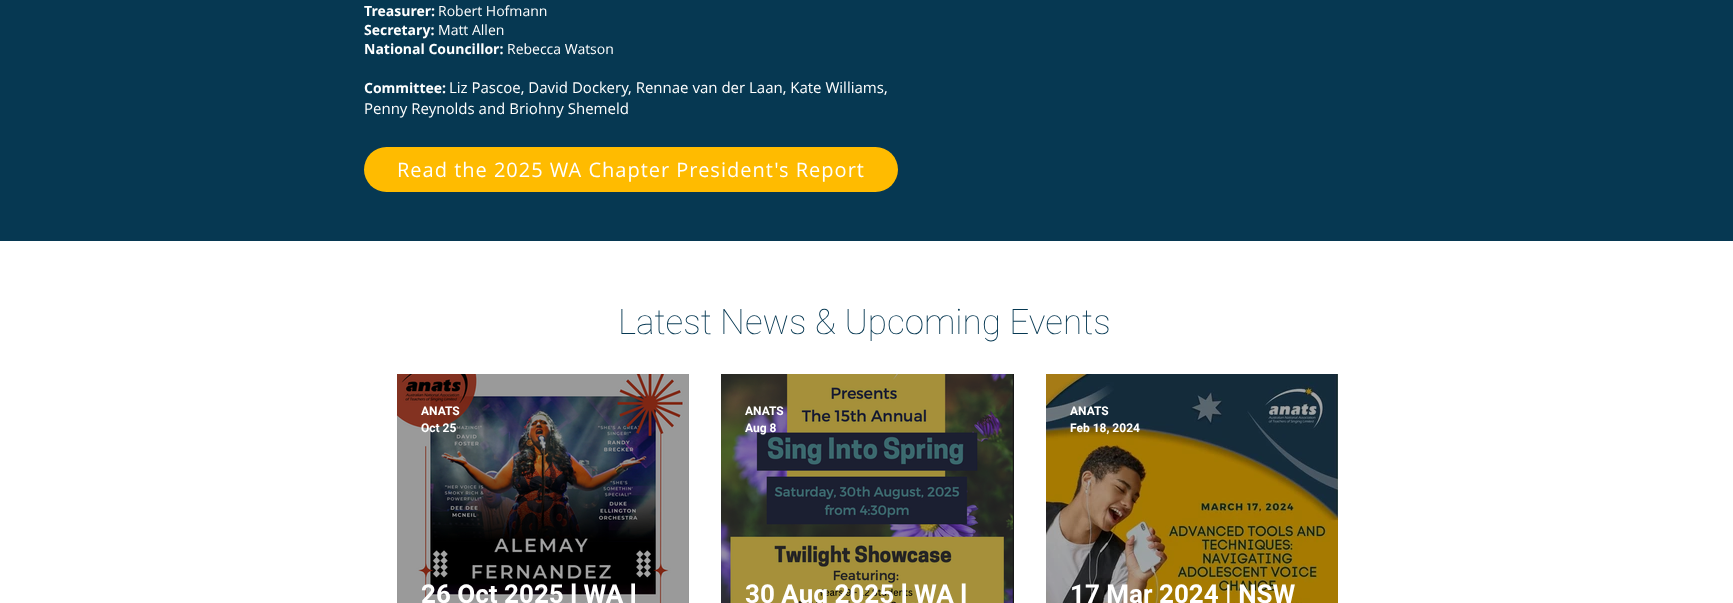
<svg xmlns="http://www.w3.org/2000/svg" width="1733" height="603">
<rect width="100%" height="100%" fill="#fff"/>
<rect width="1733" height="241" fill="#063852"/>
<text x="364" y="16" style="font-family:Open Sans;font-size:14px;font-weight:bold;fill:#fff">Treasurer:</text>
<text x="438" y="16" style="font-family:Open Sans;font-size:14px;fill:#fff">Robert Hofmann</text>
<text x="364" y="35" style="font-family:Open Sans;font-size:14px;font-weight:bold;fill:#fff">Secretary:</text>
<text x="438" y="35" style="font-family:Open Sans;font-size:14px;fill:#fff">Matt Allen</text>
<text x="364" y="54" style="font-family:Open Sans;font-size:14px;font-weight:bold;fill:#fff">National Councillor:</text>
<text x="507" y="54" style="font-family:Open Sans;font-size:14px;fill:#fff">Rebecca Watson</text>
<text x="364" y="93" style="font-family:Open Sans;font-size:14px;font-weight:bold;fill:#fff">Committee:</text>
<text x="449" y="93" style="font-family:Open Sans;font-size:15px;fill:#fff">Liz Pascoe, David Dockery, Rennae van der Laan, Kate Williams,</text>
<text x="364" y="114" style="font-family:Open Sans;font-size:15px;fill:#fff">Penny Reynolds and Briohny Shemeld</text>
<rect x="364" y="147" width="534" height="45" rx="22.5" fill="#fb0"/>
<text x="397" y="177" style="font-family:Open Sans;font-size:20px;letter-spacing:1px;fill:#fff">Read the 2025 WA Chapter President's Report</text>
<text x="618" y="334" style="font-family:Roboto;font-size:35px;font-weight:100;fill:#063852">Latest News &amp; Upcoming Events</text>
<image x="397" y="374" width="292" height="229" href="media/1.png"/>
<text x="421" y="415" style="font-family:Roboto;font-size:12px;font-weight:bold;fill:#fff">ANATS</text>
<text x="421" y="432" style="font-family:Roboto;font-size:12px;font-weight:bold;fill:#fff">Oct 25</text>
<text x="421" y="603" style="font-family:Roboto;font-size:26px;font-weight:bold;fill:#fff">26 Oct 2025 l WA l</text>
<image x="721" y="374" width="293" height="229" href="media/2.png"/>
<text x="745" y="415" style="font-family:Roboto;font-size:12px;font-weight:bold;fill:#fff">ANATS</text>
<text x="745" y="432" style="font-family:Roboto;font-size:12px;font-weight:bold;fill:#fff">Aug 8</text>
<text x="745" y="603" style="font-family:Roboto;font-size:26px;font-weight:bold;fill:#fff">30 Aug 2025 l WA l</text>
<image x="1046" y="374" width="292" height="229" href="media/3.png"/>
<text x="1070" y="415" style="font-family:Roboto;font-size:12px;font-weight:bold;fill:#fff">ANATS</text>
<text x="1070" y="432" style="font-family:Roboto;font-size:12px;font-weight:bold;fill:#fff">Feb 18, 2024</text>
<text x="1070" y="603" style="font-family:Roboto;font-size:26px;font-weight:bold;fill:#fff">17 Mar 2024 | NSW</text>
</svg>
